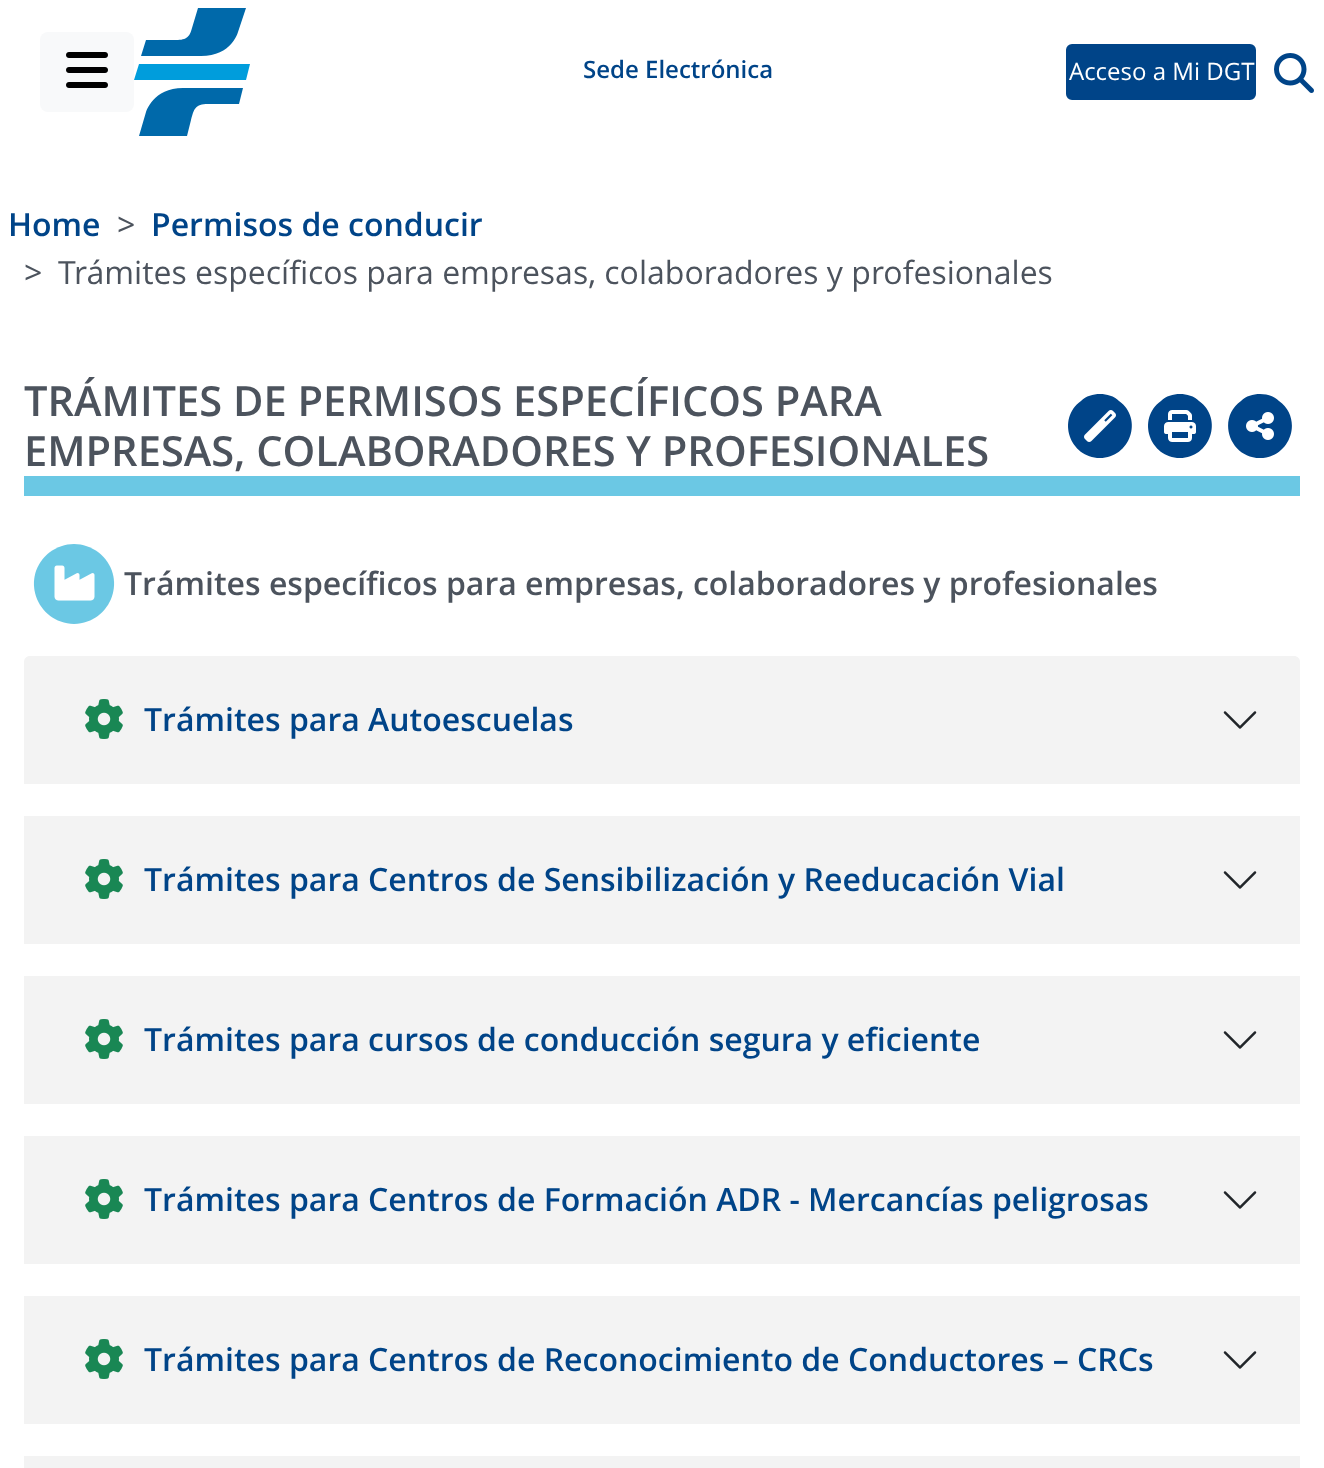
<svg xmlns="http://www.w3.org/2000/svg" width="1324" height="1468">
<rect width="100%" height="100%" fill="#fff"/>
<rect x="40" y="32" width="94" height="80" rx="8" fill="#f8f9fa"/>
<image x="66" y="52" width="42" height="36" href="media/1.png"/>
<path d="M139 64h111l-4 16h-112l5-16" fill="#009ddc"/>
<path d="M239 104h-31c-13 0-14 5-17 16l-4 16h-48l7-24c0 0 7-24 37-24h60l-4 16" fill="#0069aa"/>
<path d="M146 40h26c12 0 17 0 20-12l6-20h48l-8 24c0 0-6 24-37 24h-60l5-16" fill="#0069aa"/>
<text x="583" y="78" style="font-family:Open Sans;font-size:24px;font-weight:600;fill:#048">Sede Electrónica</text>
<rect x="1067" y="45" width="188" height="54" rx="5" fill="#048" stroke="#048" stroke-width="2"/>
<text x="1069" y="80" style="font-family:Open Sans;font-size:24px;fill:#fff">Acceso a Mi DGT</text>
<image x="1274" y="53" width="40" height="40" href="media/2.png"/>
<text x="8" y="236" style="font-family:Open Sans;font-size:32px;font-weight:600;fill:#048">Home</text>
<text x="117" y="236" style="font-family:Open Sans;font-size:32px;fill:#4c535d">&gt;</text>
<text x="151" y="236" style="font-family:Open Sans;font-size:32px;font-weight:600;fill:#048">Permisos de conducir</text>
<text x="24" y="284" style="font-family:Open Sans;font-size:32px;fill:#4c535d">&gt;</text>
<text x="58" y="284" style="font-family:Open Sans;font-size:32px;fill:#4c535d">Trámites específicos para empresas, colaboradores y profesionales</text>
<rect x="24" y="476" width="1276" height="20" fill="#6bc8e4"/>
<text x="24" y="416" style="font-family:Open Sans;font-size:41.6px;font-weight:600;fill:#4c535d">TRÁMITES DE PERMISOS ESPECÍFICOS PARA</text>
<text x="24" y="466" style="font-family:Open Sans;font-size:41.6px;font-weight:600;fill:#4c535d">EMPRESAS, COLABORADORES Y PROFESIONALES</text>
<path d="M1100 458c30 0 44-39 19-57c-5-5-12-7-19-7c-7 0-14 2-19 7c-25 18-11 57 19 57z" fill="#048"/>
<image x="1084" y="410" width="32" height="32" href="media/3.png"/>
<path d="M1180 458c30 0 44-39 19-57c-5-5-12-7-19-7c-7 0-14 2-19 7c-25 18-11 57 19 57z" fill="#048"/>
<image x="1164" y="410" width="32" height="32" href="media/4.png"/>
<path d="M1260 458c30 0 44-39 19-57c-5-5-12-7-19-7c-7 0-14 2-19 7c-25 18-11 57 19 57z" fill="#048"/>
<image x="1246" y="412" width="28" height="28" href="media/5.png"/>
<path d="M74 624c38-1 55-48 24-72c-7-5-15-8-24-8c-9 0-17 3-24 8c-31 24-14 71 24 72z" fill="#6bc8e4"/>
<image x="54" y="565" width="41" height="36" href="media/6.png"/>
<text x="124" y="595" style="font-family:Open Sans;font-size:32px;font-weight:600;fill:#4c535d">Trámites específicos para empresas, colaboradores y profesionales</text>
<path d="M30 656h1264c3.5 0 6 2.5 6 6v122h-1276v-122c0-3.5 2.5-6 6-6z" fill="#f3f3f3"/>
<image x="85" y="699" width="38" height="40" href="media/7.png"/>
<text x="144" y="731" style="font-family:Open Sans;font-size:32px;font-weight:600;fill:#048">Trámites para Autoescuelas</text>
<image x="1223" y="711" width="34" height="18" href="media/8.png"/>
<rect x="24" y="816" width="1276" height="128" fill="#f3f3f3"/>
<image x="85" y="859" width="38" height="40" href="media/7.png"/>
<text x="144" y="891" style="font-family:Open Sans;font-size:32px;font-weight:600;fill:#048">Trámites para Centros de Sensibilización y Reeducación Vial</text>
<image x="1223" y="871" width="34" height="18" href="media/8.png"/>
<rect x="24" y="976" width="1276" height="128" fill="#f3f3f3"/>
<image x="85" y="1019" width="38" height="40" href="media/7.png"/>
<text x="144" y="1051" style="font-family:Open Sans;font-size:32px;font-weight:600;fill:#048">Trámites para cursos de conducción segura y eficiente</text>
<image x="1223" y="1031" width="34" height="18" href="media/8.png"/>
<rect x="24" y="1136" width="1276" height="128" fill="#f3f3f3"/>
<image x="85" y="1179" width="38" height="40" href="media/7.png"/>
<text x="144" y="1211" style="font-family:Open Sans;font-size:32px;font-weight:600;fill:#048">Trámites para Centros de Formación ADR - Mercancías peligrosas</text>
<image x="1223" y="1191" width="34" height="18" href="media/8.png"/>
<rect x="24" y="1296" width="1276" height="128" fill="#f3f3f3"/>
<image x="85" y="1339" width="38" height="40" href="media/7.png"/>
<text x="144" y="1371" style="font-family:Open Sans;font-size:32px;font-weight:600;fill:#048">Trámites para Centros de Reconocimiento de Conductores – CRCs</text>
<image x="1223" y="1351" width="34" height="18" href="media/8.png"/>
<rect x="24" y="1456" width="1276" height="12" fill="#f3f3f3"/>
</svg>
